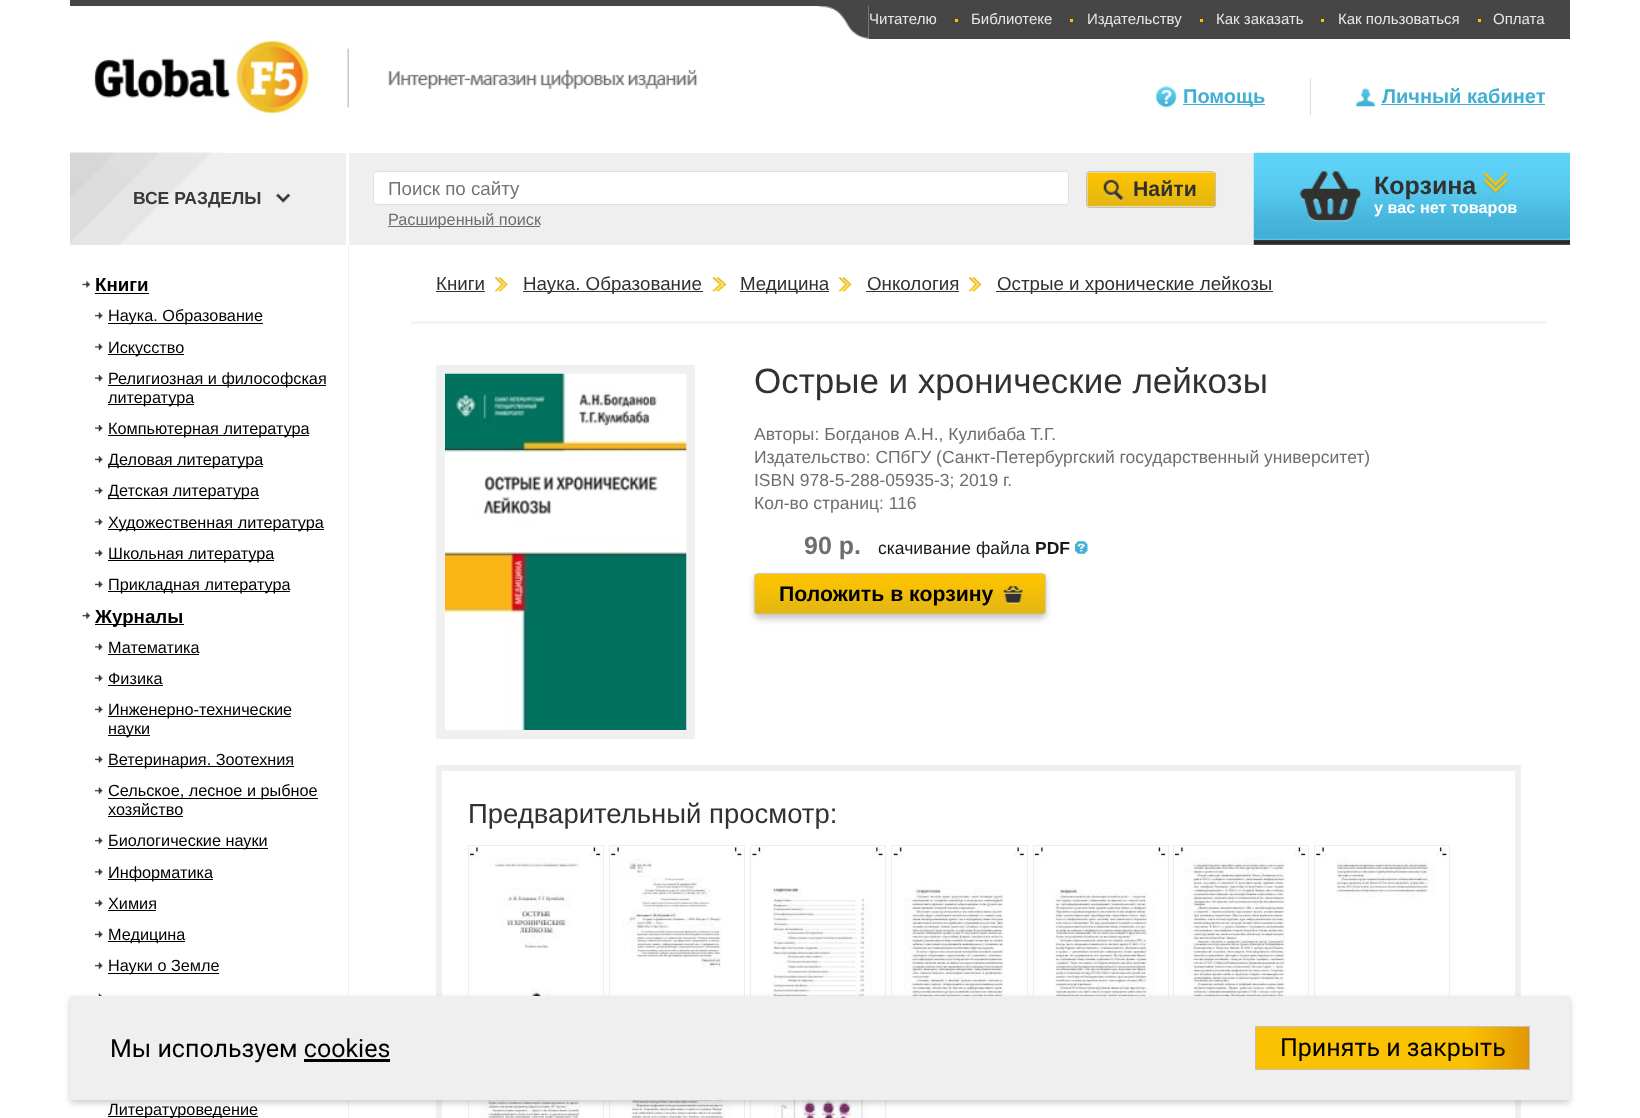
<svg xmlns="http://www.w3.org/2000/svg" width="1640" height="1118">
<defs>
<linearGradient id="g1" gradientUnits="userSpaceOnUse" x1="1256" y1="1004" x2="1529" y2="1009"><stop offset="0.77" stop-color="#fac202"/><stop offset="1" stop-color="#e39703"/></linearGradient>
<linearGradient id="g2" gradientUnits="userSpaceOnUse" x1="1256" y1="1046" x2="1529" y2="1051"><stop offset="0.77" stop-color="#fac202"/><stop offset="1" stop-color="#e39703"/></linearGradient>
</defs>
<rect width="100%" height="100%" fill="#fff"/>
<rect x="70" width="799" height="6" fill="#464646"/>
<rect x="869" width="701" height="39" fill="#464646"/>
<image x="818" y="6" width="51" height="33" href="media/1.png"/>
<text x="869" y="24" style="font-family:Liberation Sans;font-size:15px;fill:#e9e8e8">Читателю</text>
<rect x="955" y="19" width="3" height="3" fill="#fdc301"/>
<text x="971" y="24" style="font-family:Liberation Sans;font-size:15px;fill:#e9e8e8">Библиотеке</text>
<rect x="1070" y="19" width="3" height="3" fill="#fdc301"/>
<text x="1087" y="24" style="font-family:Liberation Sans;font-size:15px;fill:#e9e8e8">Издательству</text>
<rect x="1200" y="19" width="3" height="3" fill="#fdc301"/>
<text x="1216" y="24" style="font-family:Liberation Sans;font-size:15px;fill:#e9e8e8">Как заказать</text>
<rect x="1321" y="19" width="3" height="3" fill="#fdc301"/>
<text x="1338" y="24" style="font-family:Liberation Sans;font-size:15px;fill:#e9e8e8">Как пользоваться</text>
<rect x="1478" y="19" width="3" height="3" fill="#fdc301"/>
<text x="1493" y="24" style="font-family:Liberation Sans;font-size:15px;fill:#e9e8e8">Оплата</text>
<image x="94" y="41" width="604" height="73" href="media/2.png"/>
<rect x="1310" y="78" width="1" height="37" fill="#ddd"/>
<image x="1155" y="86" width="22" height="22" href="media/3.png"/>
<rect x="1183" y="104" width="82" height="1" fill="#41afd3"/>
<text x="1183" y="103" style="font-family:Liberation Sans;font-size:20px;font-weight:bold;fill:#41afd3">Помощь</text>
<image x="1356" y="87" width="19" height="20" href="media/4.png"/>
<text x="1382" y="103" style="font-family:Liberation Sans;font-size:20px;font-weight:bold;fill:#41afd3">Личный кабинет</text>
<rect x="1381" y="104" width="164" height="1" fill="#41afd3"/>
<rect x="70" y="153" width="1500" height="92" fill="#efefef"/>
<image x="70" y="152" width="155" height="93" href="media/5.png"/>
<image x="1253" y="152" width="317" height="93" href="media/6.png"/>
<image x="1300" y="170" width="62" height="53" href="media/7.png"/>
<text x="1374" y="194" style="font-family:Liberation Sans;font-size:25px;font-weight:bold;fill:#313130">Корзина</text>
<image x="1483" y="172" width="25" height="22" href="media/8.png"/>
<text x="1374" y="213" style="font-family:Liberation Sans;font-size:16.25px;font-weight:bold;fill:#fff">у вас нет товаров</text>
<rect x="346" y="153" width="3" height="92" fill="#fff"/>
<text x="133" y="204" style="font-family:Liberation Sans;font-size:17.5px;font-weight:bold;fill:#393939">ВСЕ РАЗДЕЛЫ</text>
<image x="276" y="193" width="15" height="10" href="media/9.png"/>
<rect x="373.5" y="171.5" width="695" height="33" rx="3.5" fill="#fff" stroke="#e0e0e0"/>
<text x="388" y="195" style="font-family:Liberation Sans;font-size:18.75px;fill:#757575">Поиск по сайту</text>
<rect x="388" y="226" width="152" height="1" fill="#6e6e6e"/>
<text x="388" y="225" style="font-family:Liberation Sans;font-size:16.25px;fill:#6e6e6e">Расширенный поиск</text>
<image x="1087" y="172" width="130" height="35" href="media/10.png"/>
<rect x="1086.5" y="171.5" width="129" height="36" rx="3.5" fill="none" stroke="#c0c0c0"/>
<text x="1133" y="196" style="font-family:Liberation Sans;font-size:21.25px;font-weight:bold;fill:#313130">Найти</text>
<rect x="348" y="245" width="1" height="873" fill="#efefef"/>
<image x="82" y="281" width="8" height="7" href="media/11.png"/>
<text x="95" y="291" style="font-family:Liberation Sans;font-size:18.75px;font-weight:bold;fill:#000">Книги</text>
<rect x="95" y="293" width="54" height="1" fill="#000"/>
<image x="95" y="312" width="8" height="7" href="media/12.png"/>
<rect x="108" y="323" width="155" height="1" fill="#000"/>
<text x="108" y="321" style="font-family:Liberation Sans;font-size:16.25px;fill:#000">Наука. Образование</text>
<image x="95" y="343" width="8" height="7" href="media/13.png"/>
<rect x="108" y="354" width="76" height="1" fill="#000"/>
<text x="108" y="353" style="font-family:Liberation Sans;font-size:16.25px;fill:#000">Искусство</text>
<image x="95" y="375" width="8" height="7" href="media/14.png"/>
<rect x="108" y="385" width="218" height="1" fill="#000"/>
<text x="108" y="384" style="font-family:Liberation Sans;font-size:16.25px;fill:#000">Религиозная и философская</text>
<rect x="108" y="404" width="86" height="1" fill="#000"/>
<text x="108" y="403" style="font-family:Liberation Sans;font-size:16.25px;fill:#000">литература</text>
<image x="95" y="425" width="8" height="7" href="media/14.png"/>
<rect x="108" y="435" width="201" height="1" fill="#000"/>
<text x="108" y="434" style="font-family:Liberation Sans;font-size:16.25px;fill:#000">Компьютерная литература</text>
<image x="95" y="456" width="8" height="7" href="media/15.png"/>
<rect x="108" y="466" width="155" height="1" fill="#000"/>
<text x="108" y="465" style="font-family:Liberation Sans;font-size:16.25px;fill:#000">Деловая литература</text>
<image x="95" y="487" width="8" height="7" href="media/12.png"/>
<rect x="108" y="498" width="151" height="1" fill="#000"/>
<text x="108" y="496" style="font-family:Liberation Sans;font-size:16.25px;fill:#000">Детская литература</text>
<image x="95" y="518" width="8" height="7" href="media/13.png"/>
<rect x="108" y="529" width="216" height="1" fill="#000"/>
<text x="108" y="528" style="font-family:Liberation Sans;font-size:16.25px;fill:#000">Художественная литература</text>
<image x="95" y="550" width="8" height="7" href="media/14.png"/>
<rect x="108" y="560" width="166" height="1" fill="#000"/>
<text x="108" y="559" style="font-family:Liberation Sans;font-size:16.25px;fill:#000">Школьная литература</text>
<image x="95" y="581" width="8" height="7" href="media/15.png"/>
<rect x="108" y="591" width="182" height="1" fill="#000"/>
<text x="108" y="590" style="font-family:Liberation Sans;font-size:16.25px;fill:#000">Прикладная литература</text>
<image x="82" y="612" width="8" height="7" href="media/16.png"/>
<rect x="95" y="624" width="89" height="1" fill="#000"/>
<text x="95" y="623" style="font-family:Liberation Sans;font-size:18.75px;font-weight:bold;fill:#000">Журналы</text>
<image x="95" y="643" width="8" height="7" href="media/13.png"/>
<text x="108" y="653" style="font-family:Liberation Sans;font-size:16.25px;fill:#000">Математика</text>
<rect x="108" y="654" width="91" height="1" fill="#000"/>
<image x="95" y="675" width="8" height="7" href="media/14.png"/>
<text x="108" y="684" style="font-family:Liberation Sans;font-size:16.25px;fill:#000">Физика</text>
<rect x="108" y="685" width="55" height="1" fill="#000"/>
<image x="95" y="706" width="8" height="7" href="media/15.png"/>
<rect x="108" y="716" width="183" height="1" fill="#000"/>
<text x="108" y="715" style="font-family:Liberation Sans;font-size:16.25px;fill:#000">Инженерно-технические</text>
<rect x="108" y="735" width="42" height="1" fill="#000"/>
<text x="108" y="734" style="font-family:Liberation Sans;font-size:16.25px;fill:#000">науки</text>
<image x="95" y="756" width="8" height="7" href="media/15.png"/>
<rect x="108" y="766" width="186" height="1" fill="#000"/>
<text x="108" y="765" style="font-family:Liberation Sans;font-size:16.25px;fill:#000">Ветеринария. Зоотехния</text>
<image x="95" y="787" width="8" height="7" href="media/12.png"/>
<rect x="108" y="798" width="210" height="1" fill="#000"/>
<text x="108" y="796" style="font-family:Liberation Sans;font-size:16.25px;fill:#000">Сельское, лесное и рыбное</text>
<text x="108" y="815" style="font-family:Liberation Sans;font-size:16.25px;fill:#000">хозяйство</text>
<rect x="108" y="816" width="75" height="1" fill="#000"/>
<image x="95" y="837" width="8" height="7" href="media/12.png"/>
<rect x="108" y="848" width="160" height="1" fill="#000"/>
<text x="108" y="846" style="font-family:Liberation Sans;font-size:16.25px;fill:#000">Биологические науки</text>
<image x="95" y="868" width="8" height="7" href="media/13.png"/>
<rect x="108" y="879" width="105" height="1" fill="#000"/>
<text x="108" y="878" style="font-family:Liberation Sans;font-size:16.25px;fill:#000">Информатика</text>
<image x="95" y="900" width="8" height="7" href="media/14.png"/>
<text x="108" y="909" style="font-family:Liberation Sans;font-size:16.25px;fill:#000">Химия</text>
<rect x="108" y="910" width="48" height="1" fill="#000"/>
<image x="95" y="931" width="8" height="7" href="media/15.png"/>
<rect x="108" y="941" width="77" height="1" fill="#000"/>
<text x="108" y="940" style="font-family:Liberation Sans;font-size:16.25px;fill:#000">Медицина</text>
<image x="95" y="962" width="8" height="7" href="media/12.png"/>
<rect x="108" y="973" width="111" height="1" fill="#000"/>
<text x="108" y="971" style="font-family:Liberation Sans;font-size:16.25px;fill:#000">Науки о Земле</text>
<image x="98" y="993" width="4" height="3" href="media/17.png"/>
<rect x="108" y="1116" width="150" height="1" fill="#000"/>
<text x="108" y="1115" style="font-family:Liberation Sans;font-size:16.25px;fill:#000">Литературоведение</text>
<rect x="411" y="321" width="1135" height="3" fill="#f4f4f4"/>
<text x="436" y="290" style="font-family:Liberation Sans;font-size:18.75px;fill:#313130">Книги</text>
<rect x="436" y="291" width="49" height="1" fill="#313130"/>
<image x="495" y="277" width="13" height="15" href="media/18.png"/>
<rect x="523" y="291" width="180" height="1" fill="#313130"/>
<text x="523" y="290" style="font-family:Liberation Sans;font-size:18.75px;fill:#313130">Наука. Образование</text>
<image x="712" y="277" width="15" height="15" href="media/19.png"/>
<rect x="740" y="291" width="89" height="1" fill="#313130"/>
<text x="740" y="290" style="font-family:Liberation Sans;font-size:18.75px;fill:#313130">Медицина</text>
<image x="838" y="277" width="14" height="15" href="media/20.png"/>
<text x="867" y="290" style="font-family:Liberation Sans;font-size:18.75px;fill:#313130">Онкология</text>
<rect x="866" y="291" width="93" height="1" fill="#313130"/>
<image x="968" y="277" width="14" height="15" href="media/20.png"/>
<rect x="996" y="291" width="277" height="1" fill="#313130"/>
<text x="997" y="290" style="font-family:Liberation Sans;font-size:18.75px;fill:#313130">Острые и хронические лейкозы</text>
<rect x="440.5" y="369.5" width="250" height="365" fill="none" stroke="#f0f0f0" stroke-width="9"/>
<image x="445" y="373" width="242" height="357" href="media/21.png"/>
<text x="754" y="393" style="font-family:Liberation Sans;font-size:35px;fill:#313130">Острые и хронические лейкозы</text>
<text x="754" y="440" style="font-family:Liberation Sans;font-size:17.5px;fill:#6e6e6e">Авторы: Богданов А.Н., Кулибаба Т.Г.</text>
<text x="754" y="463" style="font-family:Liberation Sans;font-size:17.5px;fill:#6e6e6e">Издательство: СПбГУ (Санкт-Петербургский государственный университет)</text>
<text x="754" y="486" style="font-family:Liberation Sans;font-size:17.5px;fill:#6e6e6e">ISBN 978-5-288-05935-3; 2019 г.</text>
<text x="754" y="509" style="font-family:Liberation Sans;font-size:17.5px;fill:#6e6e6e">Кол-во страниц: 116</text>
<text x="804" y="554" style="font-family:Liberation Sans;font-size:25px;font-weight:bold;fill:#6e6e6e">90 р.</text>
<text x="878" y="554" style="font-family:Liberation Sans;font-size:17.5px;fill:#181818">скачивание файла</text>
<text x="1035" y="554" style="font-family:Liberation Sans;font-size:17.5px;font-weight:bold;fill:#181818">PDF</text>
<image x="1075" y="541" width="13" height="13" href="media/22.png"/>
<rect x="754" y="576" width="292" height="43" rx="5" fill="#c9c9c9" filter="blur(3px)"/>
<image x="753" y="573" width="294" height="41" href="media/23.png"/>
<rect x="754.5" y="573.5" width="291" height="41" rx="4.5" fill="none" stroke="#c9c9c9"/>
<text x="779" y="601" style="font-family:Liberation Sans;font-size:21.25px;font-weight:bold;fill:#000">Положить в корзину</text>
<image x="1003" y="586" width="20" height="18" href="media/24.png"/>
<rect x="439" y="768" width="1079" height="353" fill="none" stroke="#f0f0f0" stroke-width="6"/>
<text x="468" y="823" style="font-family:Liberation Sans;font-size:27.5px;fill:#313130">Предварительный просмотр:</text>
<rect x="468.5" y="845.5" width="135" height="197" fill="none" stroke="#eee"/>
<image x="470" y="847" width="131" height="149" href="media/25.png"/>
<rect x="609.5" y="845.5" width="135" height="197" fill="none" stroke="#eee"/>
<image x="611" y="847" width="131" height="149" href="media/26.png"/>
<rect x="750.5" y="845.5" width="135" height="197" fill="none" stroke="#eee"/>
<image x="752" y="847" width="131" height="149" href="media/27.png"/>
<rect x="891.5" y="845.5" width="136" height="197" fill="none" stroke="#eee"/>
<image x="893" y="847" width="131" height="149" href="media/28.png"/>
<rect x="1033.5" y="845.5" width="135" height="197" fill="none" stroke="#eee"/>
<image x="1035" y="847" width="131" height="149" href="media/29.png"/>
<rect x="1173.5" y="845.5" width="135" height="197" fill="none" stroke="#eee"/>
<image x="1175" y="847" width="131" height="149" href="media/30.png"/>
<rect x="1314.5" y="845.5" width="135" height="197" fill="none" stroke="#eee"/>
<image x="1316" y="847" width="131" height="149" href="media/31.png"/>
<rect x="468.5" y="1043.5" width="135" height="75" fill="none" stroke="#eee"/>
<image x="470" y="1100" width="131" height="18" href="media/32.png"/>
<rect x="609.5" y="1043.5" width="135" height="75" fill="none" stroke="#eee"/>
<image x="611" y="1100" width="131" height="18" href="media/33.png"/>
<rect x="750.5" y="1043.5" width="135" height="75" fill="none" stroke="#eee"/>
<image x="752" y="1100" width="131" height="18" href="media/34.png"/>
<rect x="70" y="999" width="1500" height="104" fill="#00000033" filter="blur(3px)"/>
<rect x="70" y="996" width="1500" height="104" fill="#efefef"/>
<text x="110" y="1057" style="font-family:Roboto;font-size:25px;fill:#000">Мы используем cookies</text>
<rect x="304" y="1059" width="86" height="3" fill="#000"/>
<rect x="1256" y="1027" width="273" height="1" fill="url(#g1)"/>
<rect x="1256" y="1028" width="273" height="41" fill="url(#g2)"/>
<rect x="1255.5" y="1026.5" width="274" height="43" fill="none" stroke="#c0c0c0"/>
<text x="1280" y="1056" style="font-family:Roboto;font-size:25px;fill:#000">Принять и закрыть</text>
</svg>
